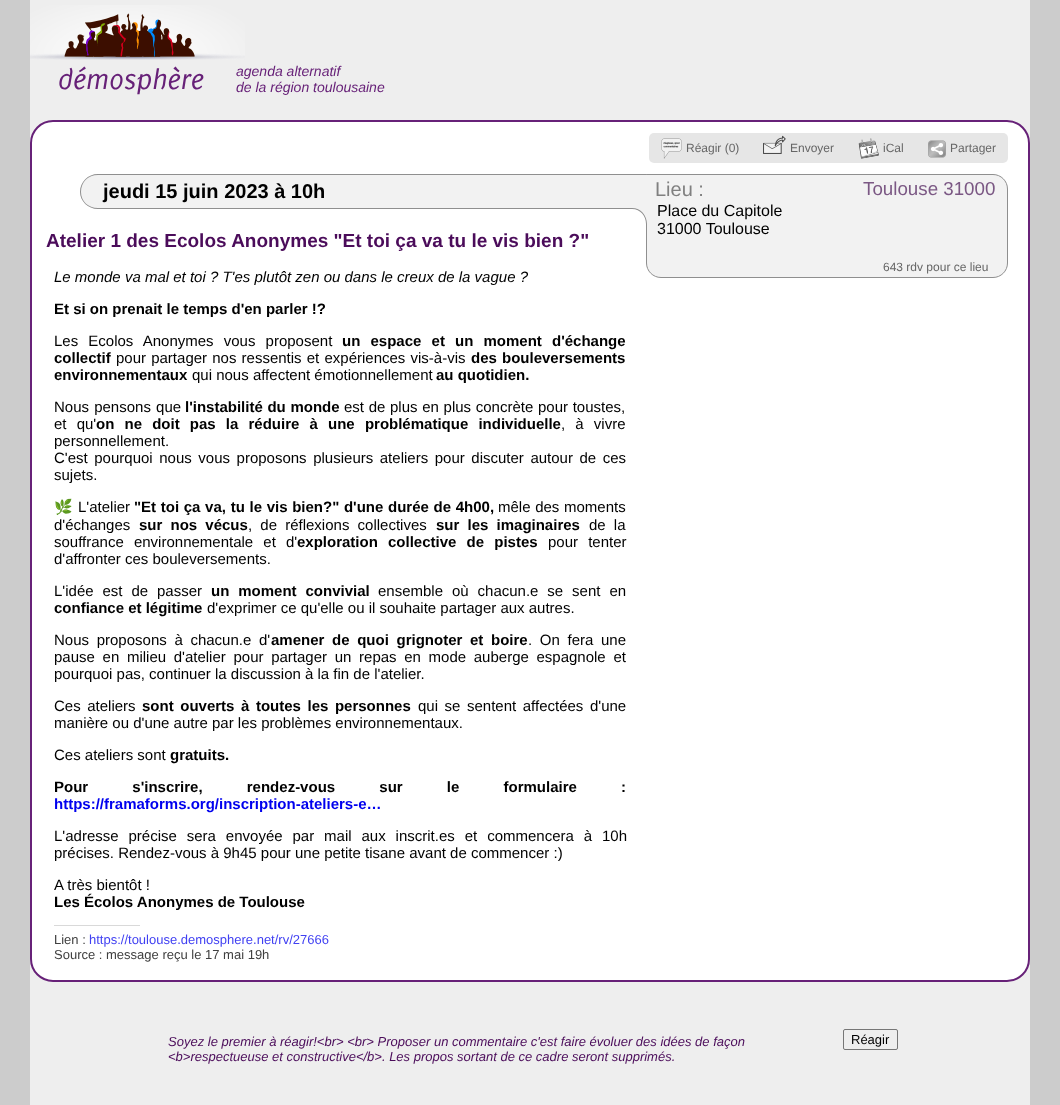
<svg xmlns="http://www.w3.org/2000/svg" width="1060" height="1105">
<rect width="100%" height="100%" fill="#ccc"/>
<rect x="30" width="1000" height="1105" fill="#eee"/>
<image x="30" y="5" width="215" height="55" href="media/1.png"/>
<text x="58" y="89" style="font-family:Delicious;font-size:30px;font-weight:500;font-style:italic;fill:#672178">démosphère</text>
<text x="236" y="76" style="font-family:Liberation Sans;font-size:14px;font-style:italic;fill:#672178">agenda alternatif</text>
<text x="236" y="92" style="font-family:Liberation Sans;font-size:14px;font-style:italic;fill:#672178">de la région toulousaine</text>
<rect x="31" y="121" width="998" height="860" rx="22" fill="#fff" stroke="#672178" stroke-width="2"/>
<rect x="649" y="133" width="359" height="30" rx="5" fill="#e6e6e6"/>
<image x="661" y="138" width="21" height="21" href="media/2.png"/>
<text x="686" y="152" style="font-family:Liberation Sans;font-size:12px;fill:#666">Réagir (0)</text>
<image x="763" y="135" width="23" height="19" href="media/3.png"/>
<text x="790" y="152" style="font-family:Liberation Sans;font-size:12px;fill:#666">Envoyer</text>
<image x="858" y="138" width="21" height="21" href="media/4.png"/>
<text x="883" y="152" style="font-family:Liberation Sans;font-size:12px;fill:#666">iCal</text>
<image x="928" y="140" width="18" height="18" href="media/5.png"/>
<text x="950" y="152" style="font-family:Liberation Sans;font-size:12px;fill:#666">Partager</text>
<path d="M97.5 174h632.5v35h-632.5c-9.5 0-17.5-8-17.5-17.5c0-9.5 8-17.5 17.5-17.5z" fill="#f2f2f2"/>
<path d="M98 174h632v35h-632c-10 0-18-8-18-17c0-10 8-18 18-18zm0 1h632v33h-632c-10 0-17-7-17-16c0-10 7-17 17-17z" fill="#8f8f8f" fill-rule="evenodd"/>
<text x="103" y="198" style="font-family:Liberation Sans;font-size:20px;font-weight:bold;fill:#000">jeudi 15 juin 2023 à 10h</text>
<path d="M646.5 174.5h346.5c8 0 14.5 6.5 14.5 14.5v74c0 8-6.5 14.5-14.5 14.5h-332c-8 0-14.5-6.5-14.5-14.5z" fill="#f2f2f2" stroke="#8f8f8f"/>
<rect x="632" y="175" width="15" height="49" fill="#f2f2f2"/>
<path d="M632 208c8.5 0 15 6.5 15 15v1h-15z" fill="#fff"/>
<path d="M632 208c9 0 15 7.5 15 16h-15zm0 1c8.5 0 14 7 14 15h-14z" fill="#8f8f8f" fill-rule="evenodd"/>
<text x="655" y="196" style="font-family:Liberation Sans;font-size:20px;fill:#808080">Lieu :</text>
<text x="863" y="195" style="font-family:Liberation Sans;font-size:18.75px;fill:#7b5884">Toulouse 31000</text>
<text x="657" y="216" style="font-family:Liberation Sans;font-size:16px;fill:#000">Place du Capitole</text>
<text x="657" y="234" style="font-family:Liberation Sans;font-size:16px;fill:#000">31000 Toulouse</text>
<text x="883" y="271" style="font-family:Liberation Sans;font-size:12px;fill:#666">643 rdv pour ce lieu</text>
<text x="46" y="247" style="font-family:Liberation Sans;font-size:19px;font-weight:bold;fill:#4b0c5a">Atelier 1 des Ecolos Anonymes "Et toi ça va tu le vis bien ?"</text>
<text x="54" y="282" style="font-family:Liberation Sans;font-size:15px;font-style:italic;fill:#000">Le monde va mal et toi ? T'es plutôt zen ou dans le creux de la vague ?</text>
<text x="54" y="314" style="font-family:Liberation Sans;font-size:15px;font-weight:bold;fill:#000">Et si on prenait le temps d'en parler !?</text>
<text x="54" y="346" word-spacing="6" style="font-family:Liberation Sans;font-size:15px;fill:#000">Les Ecolos Anonymes vous proposent</text>
<text x="342" y="346" word-spacing="6" style="font-family:Liberation Sans;font-size:15px;font-weight:bold;fill:#000">un espace et un moment d'échange</text>
<text x="54" y="363" style="font-family:Liberation Sans;font-size:15px;font-weight:bold;fill:#000">collectif</text>
<text x="116" y="363" word-spacing="1" style="font-family:Liberation Sans;font-size:15px;fill:#000">pour partager nos ressentis et expériences vis-à-vis</text>
<text x="471" y="363" word-spacing="1" style="font-family:Liberation Sans;font-size:15px;font-weight:bold;fill:#000">des bouleversements</text>
<text x="54" y="380" style="font-family:Liberation Sans;font-size:15px;font-weight:bold;fill:#000">environnementaux</text>
<text x="192" y="380" style="font-family:Liberation Sans;font-size:15px;fill:#000">qui nous affectent émotionnellement</text>
<text x="436" y="380" style="font-family:Liberation Sans;font-size:15px;font-weight:bold;fill:#000">au quotidien.</text>
<text x="54" y="412" word-spacing="1" style="font-family:Liberation Sans;font-size:15px;fill:#000">Nous pensons que</text>
<text x="185" y="412" word-spacing="0.5" style="font-family:Liberation Sans;font-size:15px;font-weight:bold;fill:#000">l'instabilité du monde</text>
<text x="344" y="412" word-spacing="0.5" style="font-family:Liberation Sans;font-size:15px;fill:#000">est de plus en plus concrète pour toustes,</text>
<text x="54" y="429" word-spacing="6" style="font-family:Liberation Sans;font-size:15px;fill:#000">et qu'</text>
<text x="96" y="429" word-spacing="6" style="font-family:Liberation Sans;font-size:15px;font-weight:bold;fill:#000">on ne doit pas la réduire à une problématique individuelle</text>
<text x="561" y="429" word-spacing="6" style="font-family:Liberation Sans;font-size:15px;fill:#000">, à vivre</text>
<text x="54" y="446" style="font-family:Liberation Sans;font-size:15px;fill:#000">personnellement.</text>
<text x="54" y="463" word-spacing="2.4" style="font-family:Liberation Sans;font-size:15px;fill:#000">C'est pourquoi nous vous proposons plusieurs ateliers pour discuter autour de ces</text>
<text x="54" y="480" style="font-family:Liberation Sans;font-size:15px;fill:#000">sujets.</text>
<text x="54" y="512" style="font-family:Noto Color Emoji;font-size:15px;fill:#000">🌿</text>
<text x="78" y="512" style="font-family:Liberation Sans;font-size:15px;fill:#000">L'atelier</text>
<text x="134" y="512" word-spacing="0.5" style="font-family:Liberation Sans;font-size:15px;font-weight:bold;fill:#000">"Et toi ça va, tu le vis bien?" d'une durée de 4h00,</text>
<text x="498" y="512" word-spacing="0.5" style="font-family:Liberation Sans;font-size:15px;fill:#000">mêle des moments</text>
<text x="54" y="530" style="font-family:Liberation Sans;font-size:15px;fill:#000">d'échanges</text>
<text x="139" y="530" word-spacing="4" style="font-family:Liberation Sans;font-size:15px;font-weight:bold;fill:#000">sur nos vécus</text>
<text x="248" y="530" word-spacing="4" style="font-family:Liberation Sans;font-size:15px;fill:#000">, de réflexions collectives</text>
<text x="436" y="530" word-spacing="4" style="font-family:Liberation Sans;font-size:15px;font-weight:bold;fill:#000">sur les imaginaires</text>
<text x="589" y="530" word-spacing="4" style="font-family:Liberation Sans;font-size:15px;fill:#000">de la</text>
<text x="54" y="547" word-spacing="6" style="font-family:Liberation Sans;font-size:15px;fill:#000">souffrance environnementale et d'</text>
<text x="297" y="547" word-spacing="6" style="font-family:Liberation Sans;font-size:15px;font-weight:bold;fill:#000">exploration collective de pistes</text>
<text x="548" y="547" word-spacing="6" style="font-family:Liberation Sans;font-size:15px;fill:#000">pour tenter</text>
<text x="54" y="564" style="font-family:Liberation Sans;font-size:15px;fill:#000">d'affronter ces bouleversements.</text>
<text x="54" y="596" word-spacing="4.75" style="font-family:Liberation Sans;font-size:15px;fill:#000">L'idée est de passer</text>
<text x="211" y="596" word-spacing="4.75" style="font-family:Liberation Sans;font-size:15px;font-weight:bold;fill:#000">un moment convivial</text>
<text x="378" y="596" word-spacing="4.75" style="font-family:Liberation Sans;font-size:15px;fill:#000">ensemble où chacun.e se sent en</text>
<text x="54" y="613" style="font-family:Liberation Sans;font-size:15px;font-weight:bold;fill:#000">confiance et légitime</text>
<text x="207" y="613" style="font-family:Liberation Sans;font-size:15px;fill:#000">d'exprimer ce qu'elle ou il souhaite partager aux autres.</text>
<text x="54" y="645" word-spacing="3.5" style="font-family:Liberation Sans;font-size:15px;fill:#000">Nous proposons à chacun.e d'</text>
<text x="271" y="645" word-spacing="3.5" style="font-family:Liberation Sans;font-size:15px;font-weight:bold;fill:#000">amener de quoi grignoter et boire</text>
<text x="528" y="645" word-spacing="3.5" style="font-family:Liberation Sans;font-size:15px;fill:#000">. On fera une</text>
<text x="54" y="662" word-spacing="3.5" style="font-family:Liberation Sans;font-size:15px;fill:#000">pause en milieu d'atelier pour partager un repas en mode auberge espagnole et</text>
<text x="54" y="679" style="font-family:Liberation Sans;font-size:15px;fill:#000">pourquoi pas, continuer la discussion à la fin de l'atelier.</text>
<text x="54" y="711" word-spacing="2.4" style="font-family:Liberation Sans;font-size:15px;fill:#000">Ces ateliers</text>
<text x="142" y="711" word-spacing="2.4" style="font-family:Liberation Sans;font-size:15px;font-weight:bold;fill:#000">sont ouverts à toutes les personnes</text>
<text x="418" y="711" word-spacing="2.4" style="font-family:Liberation Sans;font-size:15px;fill:#000">qui se sentent affectées d'une</text>
<text x="54" y="728" style="font-family:Liberation Sans;font-size:15px;fill:#000">manière ou d'une autre par les problèmes environnementaux.</text>
<text x="54" y="760" style="font-family:Liberation Sans;font-size:15px;fill:#000">Ces ateliers sont</text>
<text x="170" y="760" style="font-family:Liberation Sans;font-size:15px;font-weight:bold;fill:#000">gratuits.</text>
<text x="54" y="792" word-spacing="40" style="font-family:Liberation Sans;font-size:15px;font-weight:bold;fill:#000">Pour s'inscrire, rendez-vous sur le formulaire :</text>
<text x="54" y="809" style="font-family:Liberation Sans;font-size:15px;font-weight:bold;fill:#00e">https://framaforms.org/inscription-ateliers-e…</text>
<text x="54" y="841" word-spacing="5.75" style="font-family:Liberation Sans;font-size:15px;fill:#000">L'adresse précise sera envoyée par mail aux inscrit.es et commencera à 10h</text>
<text x="54" y="858" style="font-family:Liberation Sans;font-size:15px;fill:#000">précises. Rendez-vous à 9h45 pour une petite tisane avant de commencer :)</text>
<text x="54" y="890" style="font-family:Liberation Sans;font-size:15px;fill:#000">A très bientôt !</text>
<text x="54" y="907" style="font-family:Liberation Sans;font-size:15px;font-weight:bold;fill:#000">Les Écolos Anonymes de Toulouse</text>
<rect x="54" y="925" width="86" height="1" fill="#d9d9d9"/>
<text x="54" y="944" style="font-family:Liberation Sans;font-size:13px;fill:#404040">Lien :</text>
<text x="89" y="944" style="font-family:Liberation Sans;font-size:13px;fill:#4040f2">https://toulouse.demosphere.net/rv/27666</text>
<text x="54" y="959" style="font-family:Liberation Sans;font-size:13px;fill:#404040">Source : message reçu le 17 mai 19h</text>
<text x="168" y="1046" style="font-family:Liberation Sans;font-size:13px;font-style:italic;fill:#4b0c5a">Soyez le premier à réagir!&lt;br&gt; &lt;br&gt; Proposer un commentaire c'est faire évoluer des idées de façon</text>
<text x="168" y="1061" style="font-family:Liberation Sans;font-size:13px;font-style:italic;fill:#4b0c5a">&lt;b&gt;respectueuse et constructive&lt;/b&gt;. Les propos sortant de ce cadre seront supprimés.</text>
<rect x="843.5" y="1029.5" width="54" height="20" rx="1.5" fill="none" stroke="#767676"/>
<text x="851" y="1044" style="font-family:Liberation Sans;font-size:13px;fill:#000">Réagir</text>
</svg>
